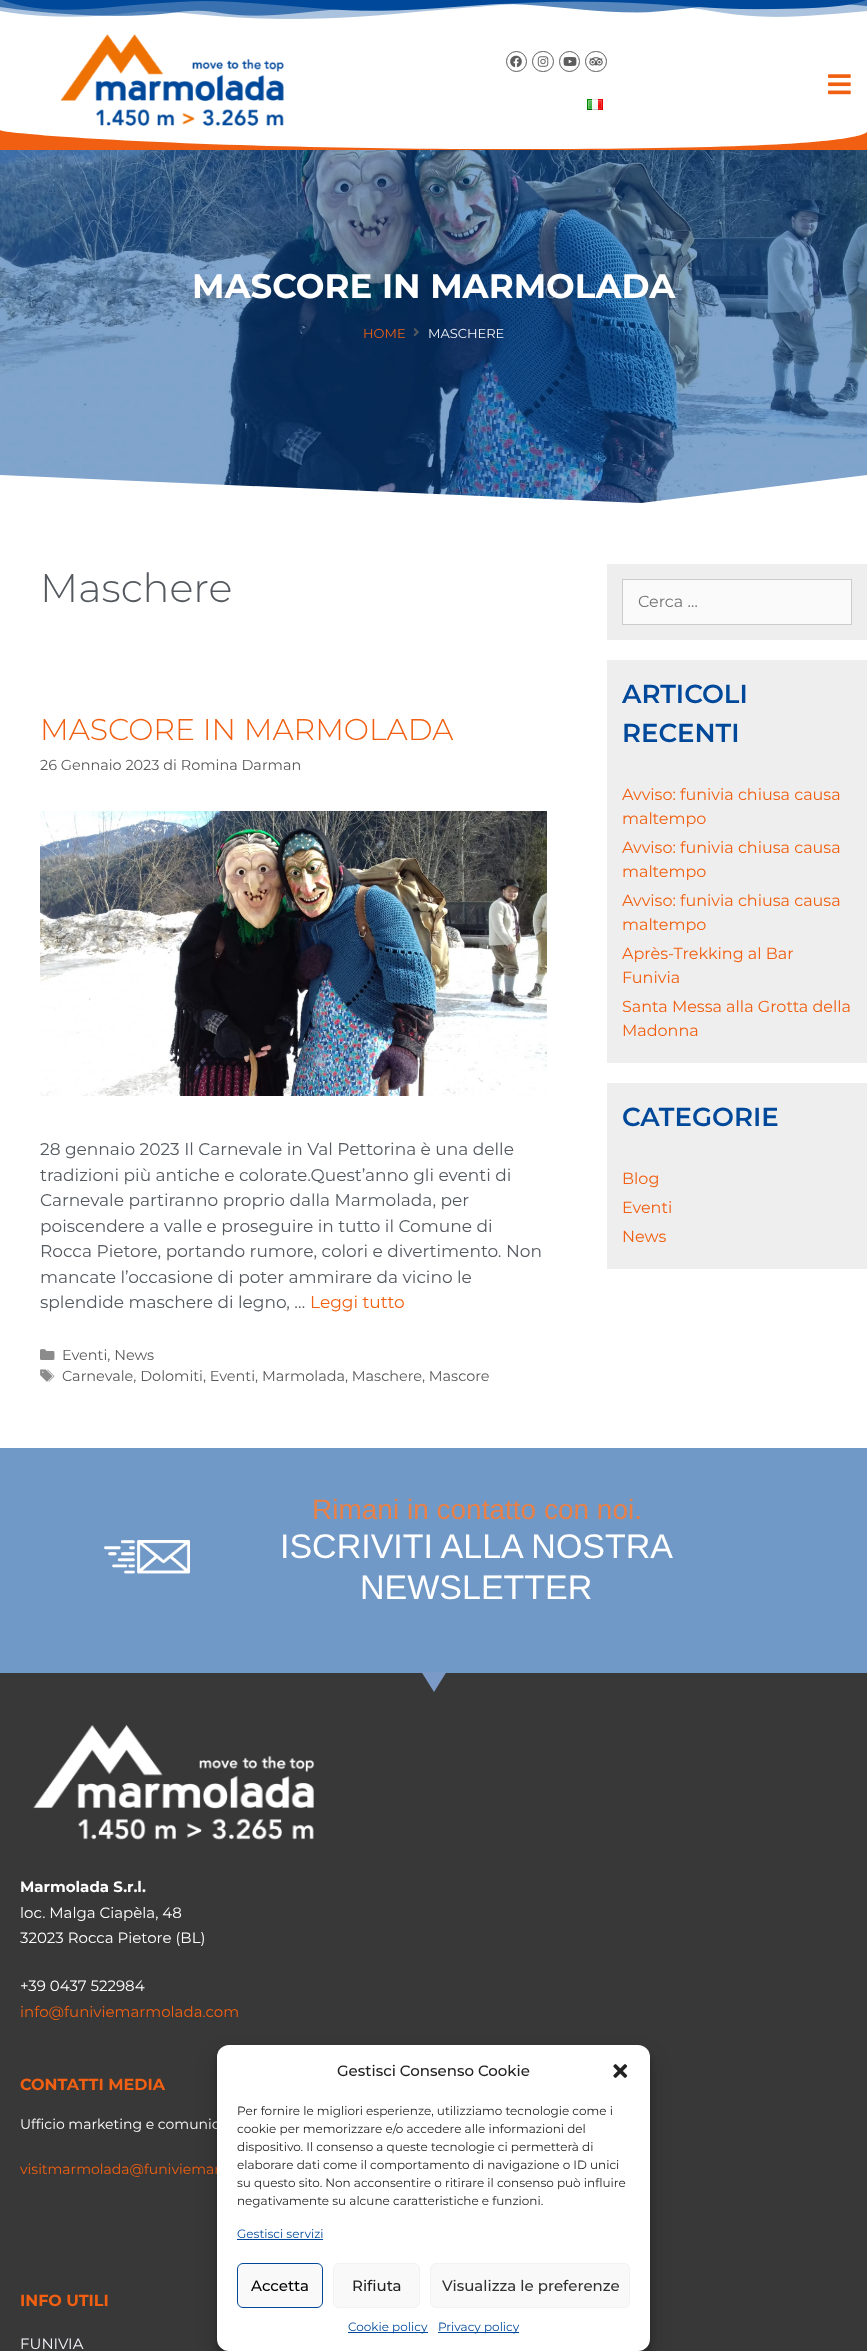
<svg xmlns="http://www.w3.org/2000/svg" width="867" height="2351">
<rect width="100%" height="100%" fill="#fff"/>
<image x="0" y="0" width="867" height="19" href="media/1.png"/>
<image x="60" y="34" width="224" height="92" href="media/2.png"/>
<circle cx="516.5" cy="61.5" r="10" fill="none" stroke="#5d5d5d"/>
<image x="510" y="55" width="12" height="13" href="media/3.png"/>
<rect x="532.5" y="51.5" width="21" height="20" rx="10" fill="none" stroke="#5d5d5d"/>
<image x="537" y="56" width="12" height="11" href="media/4.png"/>
<circle cx="569.5" cy="61.5" r="10" fill="none" stroke="#5d5d5d"/>
<image x="563" y="57" width="14" height="9" href="media/5.png"/>
<rect x="585.5" y="51.5" width="21" height="20" rx="10" fill="none" stroke="#5d5d5d"/>
<image x="589" y="57" width="14" height="9" href="media/6.png"/>
<image x="587" y="99" width="16" height="11" href="media/7.png"/>
<image x="828" y="74" width="23" height="21" href="media/8.png"/>
<path d="M534 149c-326 1-534-15-534-19v20h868v-20c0 4-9 19-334 19z" fill="#f16012"/>
<image x="0" y="150" width="867" height="353" href="media/9.png"/>
<text x="192" y="298" style="font-family:Montserrat;font-size:34px;font-weight:bold;fill:#fff">MASCORE IN MARMOLADA</text>
<text x="363" y="338" style="font-family:Montserrat;font-size:13px;fill:#f16012">HOME</text>
<image x="413" y="328" width="6" height="9" href="media/10.png"/>
<text x="428" y="338" style="font-family:Montserrat;font-size:13px;fill:#f2f5fa">MASCHERE</text>
<path d="M641 503l-641-28v30h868v-30z" fill="#fff"/>
<text x="40" y="602" style="font-family:Montserrat;font-size:40px;font-weight:300;fill:#54595f">Maschere</text>
<text x="40" y="740" style="font-family:Montserrat;font-size:30px;font-weight:300;fill:#f16012">MASCORE IN MARMOLADA</text>
<text x="40" y="770" style="font-family:Montserrat;font-size:14.45px;fill:#595959">26 Gennaio 2023 di Romina Darman</text>
<image x="40" y="811" width="507" height="285" href="media/11.png"/>
<text x="40" y="1155" style="font-family:Montserrat;font-size:17px;fill:#54595f">28 gennaio 2023 Il Carnevale in Val Pettorina è una delle</text>
<text x="40" y="1181" style="font-family:Montserrat;font-size:17px;fill:#54595f">tradizioni più antiche e colorate.Quest’anno gli eventi di</text>
<text x="40" y="1206" style="font-family:Montserrat;font-size:17px;fill:#54595f">Carnevale partiranno proprio dalla Marmolada, per</text>
<text x="40" y="1232" style="font-family:Montserrat;font-size:17px;fill:#54595f">poiscendere a valle e proseguire in tutto il Comune di</text>
<text x="40" y="1257" style="font-family:Montserrat;font-size:17px;fill:#54595f">Rocca Pietore, portando rumore, colori e divertimento. Non</text>
<text x="40" y="1283" style="font-family:Montserrat;font-size:17px;fill:#54595f">mancate l’occasione di poter ammirare da vicino le</text>
<text x="40" y="1308" style="font-family:Montserrat;font-size:17px;fill:#54595f">splendide maschere di legno, …</text>
<text x="310" y="1308" style="font-family:Montserrat;font-size:17px;fill:#f16012">Leggi tutto</text>
<image x="40" y="1349" width="15" height="11" href="media/12.png"/>
<text x="62" y="1360" style="font-family:Montserrat;font-size:14.45px;fill:#595959">Eventi, News</text>
<image x="40" y="1369" width="15" height="13" href="media/13.png"/>
<text x="62" y="1381" style="font-family:Montserrat;font-size:14.45px;fill:#595959">Carnevale, Dolomiti, Eventi, Marmolada, Maschere, Mascore</text>
<rect x="607" y="564" width="260" height="76" fill="#eee"/>
<rect x="622.5" y="579.5" width="229" height="45" fill="#fafafa" stroke="#ccc"/>
<text x="638" y="607" style="font-family:Montserrat;font-size:16px;fill:#757575">Cerca …</text>
<rect x="607" y="660" width="260" height="403" fill="#eee"/>
<text x="622" y="703" style="font-family:Montserrat;font-size:26px;font-weight:600;fill:#00499a">ARTICOLI</text>
<text x="622" y="742" style="font-family:Montserrat;font-size:26px;font-weight:600;fill:#00499a">RECENTI</text>
<text x="622" y="800" style="font-family:Montserrat;font-size:16px;fill:#f16012">Avviso: funivia chiusa causa</text>
<text x="622" y="824" style="font-family:Montserrat;font-size:16px;fill:#f16012">maltempo</text>
<text x="622" y="853" style="font-family:Montserrat;font-size:16px;fill:#f16012">Avviso: funivia chiusa causa</text>
<text x="622" y="877" style="font-family:Montserrat;font-size:16px;fill:#f16012">maltempo</text>
<text x="622" y="906" style="font-family:Montserrat;font-size:16px;fill:#f16012">Avviso: funivia chiusa causa</text>
<text x="622" y="930" style="font-family:Montserrat;font-size:16px;fill:#f16012">maltempo</text>
<text x="622" y="959" style="font-family:Montserrat;font-size:16px;fill:#f16012">Après-Trekking al Bar</text>
<text x="622" y="983" style="font-family:Montserrat;font-size:16px;fill:#f16012">Funivia</text>
<text x="622" y="1012" style="font-family:Montserrat;font-size:16px;fill:#f16012">Santa Messa alla Grotta della</text>
<text x="622" y="1036" style="font-family:Montserrat;font-size:16px;fill:#f16012">Madonna</text>
<rect x="607" y="1083" width="260" height="186" fill="#eee"/>
<text x="622" y="1126" style="font-family:Montserrat;font-size:26px;font-weight:600;fill:#00499a">CATEGORIE</text>
<text x="622" y="1184" style="font-family:Montserrat;font-size:16px;fill:#f16012">Blog</text>
<text x="622" y="1213" style="font-family:Montserrat;font-size:16px;fill:#f16012">Eventi</text>
<text x="622" y="1242" style="font-family:Montserrat;font-size:16px;fill:#f16012">News</text>
<rect y="1448" width="867" height="225" fill="#7099c7"/>
<image x="104" y="1540" width="86" height="34" href="media/14.png"/>
<text x="312" y="1519" style="font-family:Liberation Sans;font-size:28px;fill:#e88149">Rimani in contatto con noi.</text>
<text x="280" y="1558" style="font-family:Liberation Sans;font-size:34px;fill:#fff">ISCRIVITI ALLA NOSTRA</text>
<text x="360" y="1599" style="font-family:Liberation Sans;font-size:34px;fill:#fff">NEWSLETTER</text>
<rect y="1673" width="867" height="678" fill="#393838"/>
<path d="M434 1692l-12.5-20h25z" fill="#7b9ac8"/>
<image x="33" y="1724" width="282" height="116" href="media/15.png"/>
<text x="20" y="1892" style="font-family:Montserrat;font-size:15px;font-weight:bold;fill:#fff">Marmolada S.r.l.</text>
<text x="20" y="1918" style="font-family:Montserrat;font-size:15px;fill:#fff">loc. Malga Ciapèla, 48</text>
<text x="20" y="1943" style="font-family:Montserrat;font-size:15px;fill:#fff">32023 Rocca Pietore (BL)</text>
<text x="20" y="1991" style="font-family:Montserrat;font-size:15px;fill:#fff">+39 0437 522984</text>
<text x="20" y="2017" style="font-family:Montserrat;font-size:15px;fill:#f16012">info@funiviemarmolada.com</text>
<text x="20" y="2090" style="font-family:Montserrat;font-size:16px;font-weight:bold;fill:#f16012">CONTATTI MEDIA</text>
<text x="20" y="2129" style="font-family:Montserrat;font-size:14px;fill:#fff">Ufficio marketing e comunic</text>
<text x="20" y="2174" style="font-family:Montserrat;font-size:14px;fill:#f16012">visitmarmolada@funiviemar</text>
<text x="20" y="2306" style="font-family:Montserrat;font-size:16px;font-weight:bold;fill:#f16012">INFO UTILI</text>
<text x="20" y="2349" style="font-family:Montserrat;font-size:15px;fill:#f2f5fa">FUNIVIA</text>
<rect x="217" y="2051" width="433" height="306" rx="12" fill="#0000003b" filter="blur(3px)"/>
<rect x="217" y="2055" width="433" height="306" rx="12" fill="#00000030" filter="blur(10px)"/>
<rect x="217" y="2045" width="433" height="306" rx="12" fill="#fff"/>
<text x="337" y="2076" style="font-family:Montserrat;font-size:15px;font-weight:500;fill:#222">Gestisci Consenso Cookie</text>
<image x="613" y="2064" width="15" height="14" href="media/16.png"/>
<text x="237" y="2115" style="font-family:Montserrat;font-size:12px;fill:#222">Per fornire le migliori esperienze, utilizziamo tecnologie come i</text>
<text x="237" y="2133" style="font-family:Montserrat;font-size:12px;fill:#222">cookie per memorizzare e/o accedere alle informazioni del</text>
<text x="237" y="2151" style="font-family:Montserrat;font-size:12px;fill:#222">dispositivo. Il consenso a queste tecnologie ci permetterà di</text>
<text x="237" y="2169" style="font-family:Montserrat;font-size:12px;fill:#222">elaborare dati come il comportamento di navigazione o ID unici</text>
<text x="237" y="2187" style="font-family:Montserrat;font-size:12px;fill:#222">su questo sito. Non acconsentire o ritirare il consenso può influire</text>
<text x="237" y="2205" style="font-family:Montserrat;font-size:12px;fill:#222">negativamente su alcune caratteristiche e funzioni.</text>
<text x="237" y="2238" style="font-family:Montserrat;font-size:12px;fill:#00499a">Gestisci servizi</text>
<rect x="237" y="2239" width="86" height="1" fill="#00499a"/>
<rect x="237.5" y="2263.5" width="85" height="44" rx="5.5" fill="#f9f9f9" stroke="#00499a"/>
<text x="251" y="2291" style="font-family:Montserrat;font-size:15px;font-weight:500;fill:#000">Accetta</text>
<rect x="333.5" y="2263.5" width="86" height="44" rx="5.5" fill="#f9f9f9" stroke="#f2f2f2"/>
<text x="352" y="2291" style="font-family:Montserrat;font-size:15px;font-weight:500;fill:#222">Rifiuta</text>
<rect x="430.5" y="2263.5" width="199" height="44" rx="5.5" fill="#f9f9f9" stroke="#f2f2f2"/>
<text x="442" y="2291" style="font-family:Montserrat;font-size:15px;font-weight:500;fill:#333">Visualizza le preferenze</text>
<rect x="348" y="2332" width="80" height="1" fill="#00499a"/>
<text x="348" y="2331" style="font-family:Montserrat;font-size:12px;fill:#00499a">Cookie policy</text>
<rect x="438" y="2332" width="81" height="1" fill="#00499a"/>
<text x="438" y="2331" style="font-family:Montserrat;font-size:12px;fill:#00499a">Privacy policy</text>
</svg>
